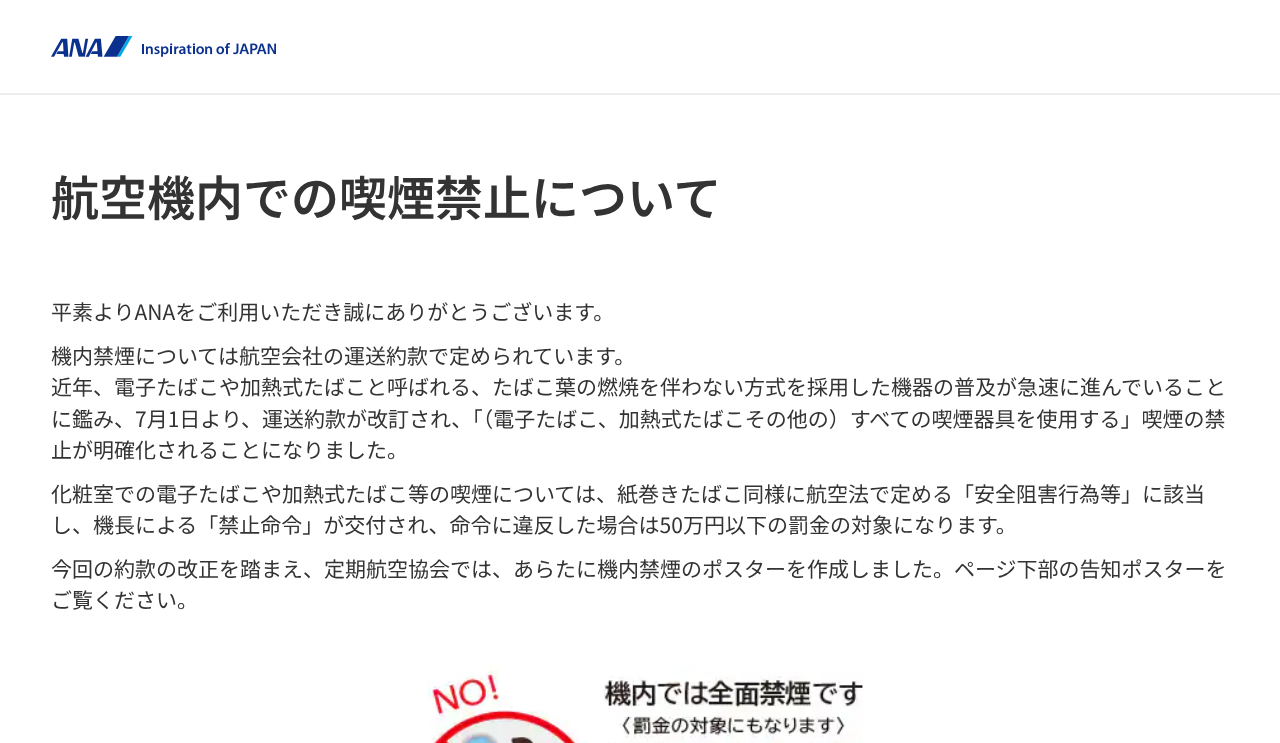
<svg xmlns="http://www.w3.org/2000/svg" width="1280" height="743">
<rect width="100%" height="100%" fill="#fff"/>
<rect y="93" width="1280" height="2" fill="#ededed"/>
<image x="51" y="36" width="225" height="21" href="media/1.png"/>
<text x="51" y="216" style="font-family:Noto Sans JP;font-size:48px;font-weight:600;fill:#333">航空機内での喫煙禁止について</text>
<text x="51" y="320" style="font-family:Noto Sans JP;font-size:21px;fill:#333">平素よりANAをご利用いただき誠にありがとうございます。</text>
<text x="51" y="364" style="font-family:Noto Sans JP;font-size:21px;fill:#333">機内禁煙については航空会社の運送約款で定められています。</text>
<text x="51" y="395" style="font-family:Noto Sans JP;font-size:21px;fill:#333">近年、電子たばこや加熱式たばこと呼ばれる、たばこ葉の燃焼を伴わない方式を採用した機器の普及が急速に進んでいること</text>
<text x="51" y="427" style="font-family:Noto Sans JP;font-size:21px;fill:#333">に鑑み、7月1日より、運送約款が改訂され、「（電子たばこ、加熱式たばこその他の）すべての喫煙器具を使用する」喫煙の禁</text>
<text x="51" y="458" style="font-family:Noto Sans JP;font-size:21px;fill:#333">止が明確化されることになりました。</text>
<text x="51" y="502" style="font-family:Noto Sans JP;font-size:21px;fill:#333">化粧室での電子たばこや加熱式たばこ等の喫煙については、紙巻きたばこ同様に航空法で定める「安全阻害行為等」に該当</text>
<text x="51" y="533" style="font-family:Noto Sans JP;font-size:21px;fill:#333">し、機長による「禁止命令」が交付され、命令に違反した場合は50万円以下の罰金の対象になります。</text>
<text x="51" y="577" style="font-family:Noto Sans JP;font-size:21px;fill:#333">今回の約款の改正を踏まえ、定期航空協会では、あらたに機内禁煙のポスターを作成しました。ページ下部の告知ポスターを</text>
<text x="51" y="608" style="font-family:Noto Sans JP;font-size:21px;fill:#333">ご覧ください。</text>
<image x="426" y="664" width="437" height="79" href="media/2.png"/>
</svg>
